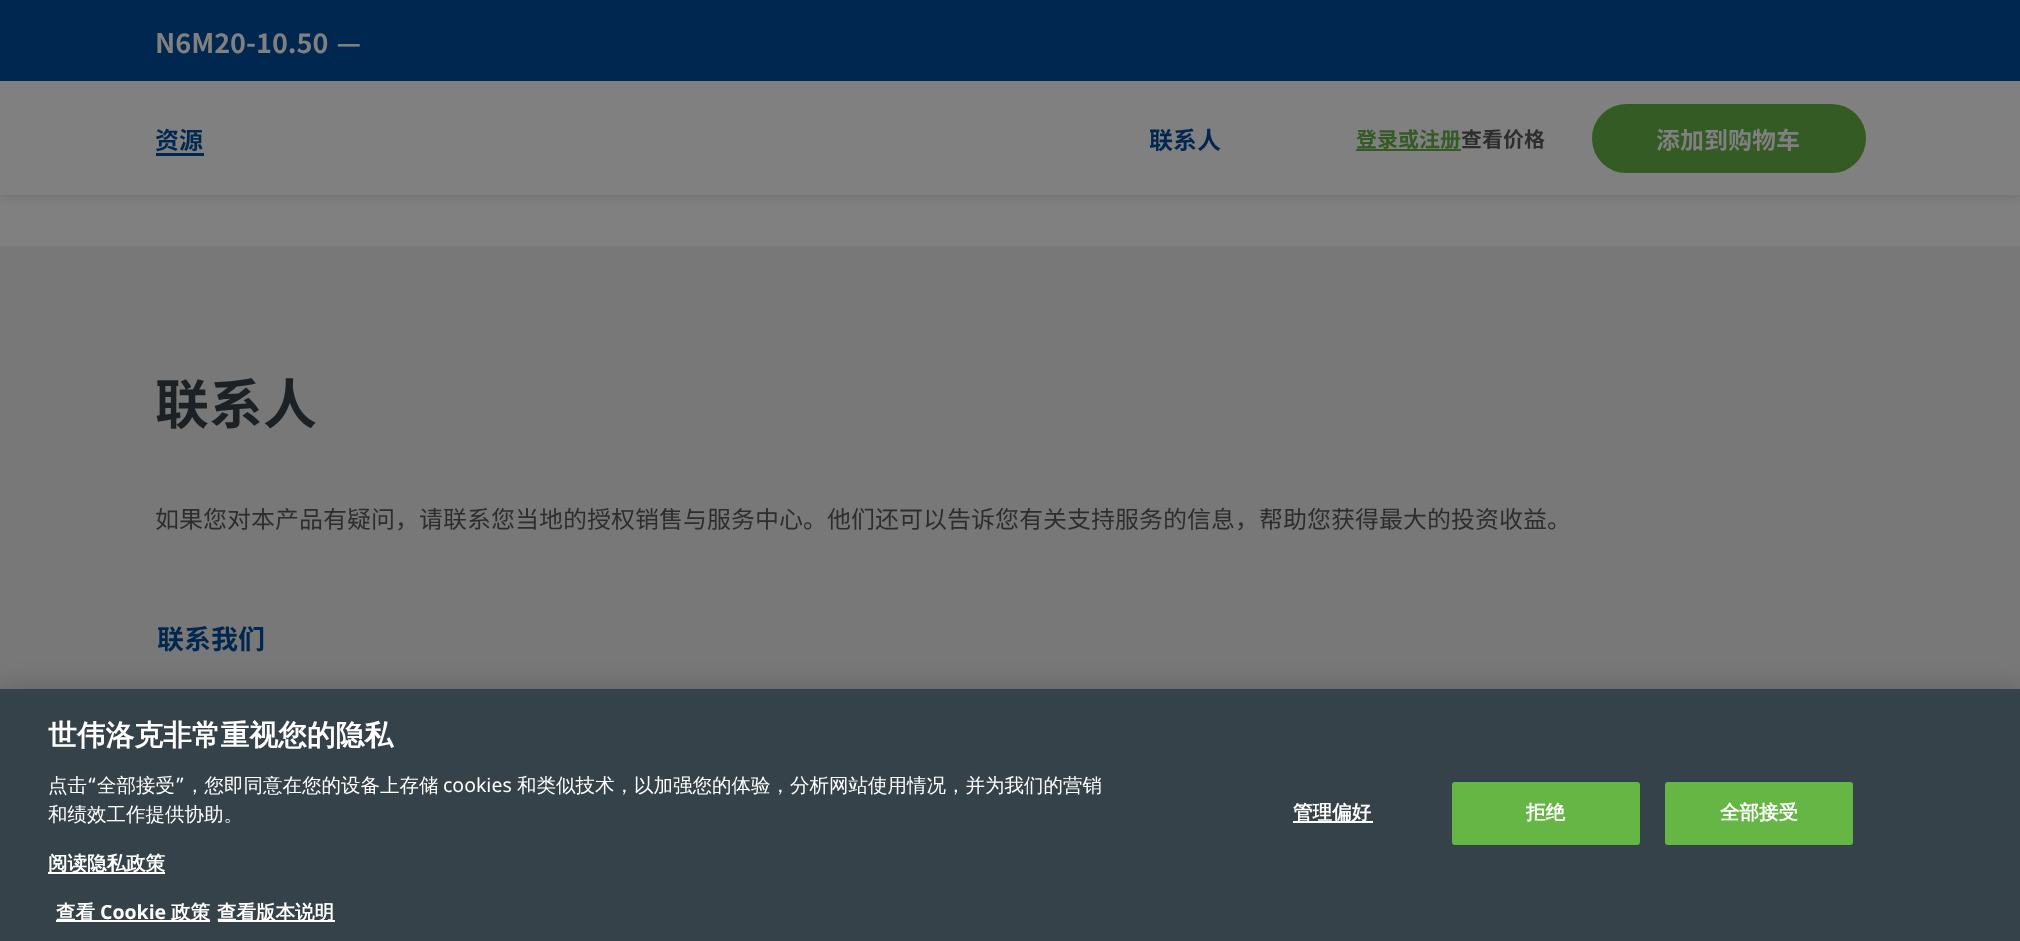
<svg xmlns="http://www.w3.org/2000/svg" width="2020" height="941">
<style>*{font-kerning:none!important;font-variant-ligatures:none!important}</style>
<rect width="100%" height="100%" fill="#808080"/>
<rect y="3" width="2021" height="195" fill="#00000017" filter="blur(5px)"/>
<rect width="2020" height="81" fill="#00274f"/>
<text x="155" y="53" word-spacing="2" style="font-family:Noto Sans SC;font-size:27px;font-weight:bold;fill:#808080">N6M20-10.50 —</text>
<rect y="81" width="2020" height="114" fill="#808080"/>
<text x="155" y="149" style="font-family:Noto Sans SC;font-size:24px;font-weight:bold;fill:#00274f">资源</text>
<rect x="156" y="153" width="48" height="3" fill="#00274f"/>
<text x="1149" y="149" style="font-family:Noto Sans SC;font-size:24px;font-weight:bold;fill:#00274f">联系人</text>
<text x="1356" y="147" style="font-family:Noto Sans SC;font-size:21px;font-weight:bold;fill:#335b23">登录或注册</text>
<rect x="1356" y="149" width="105" height="2" fill="#335b23"/>
<text x="1461" y="147" style="font-family:Noto Sans SC;font-size:21px;font-weight:bold;fill:#2d2d2d">查看价格</text>
<rect x="1593.5" y="105.5" width="271" height="66" rx="33" fill="#335b23" stroke="#335b23" stroke-width="3"/>
<text x="1656" y="149" style="font-family:Noto Sans SC;font-size:24px;font-weight:bold;fill:#808080">添加到购物车</text>
<rect y="246" width="2020" height="443" fill="#787878"/>
<text x="155" y="424" style="font-family:Noto Sans SC;font-size:54px;font-weight:bold;fill:#1b2125">联系人</text>
<text x="155" y="528" style="font-family:Noto Sans SC;font-size:24px;fill:#2d2d2d">如果您对本产品有疑问，请联系您当地的授权销售与服务中心。他们还可以告诉您有关支持服务的信息，帮助您获得最大的投资收益。</text>
<text x="157" y="649" style="font-family:Noto Sans SC;font-size:27px;font-weight:bold;fill:#00274f">联系我们</text>
<rect y="689" width="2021" height="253" fill="#00000033" filter="blur(13.5px)"/>
<rect y="689" width="2020" height="252" fill="#36424a"/>
<text x="48" y="745" style="font-family:WenQuanYi Zen Hei;font-size:28.75px;font-weight:bold;fill:#fff">世伟洛克非常重视您的隐私</text>
<text x="48" y="792" style="font-family:WenQuanYi Zen Hei;font-size:19.5px;font-weight:500;fill:#fff">点击</text>
<text x="87" y="792" style="font-family:Noto Sans;font-size:19.5px;fill:#fff">“</text>
<text x="97" y="792" style="font-family:WenQuanYi Zen Hei;font-size:19.5px;font-weight:500;fill:#fff">全部接受</text>
<text x="175" y="792" style="font-family:Noto Sans;font-size:19.5px;fill:#fff">”</text>
<text x="185" y="792" style="font-family:WenQuanYi Zen Hei;font-size:19.5px;font-weight:500;fill:#fff">，您即同意在您的设备上存储</text>
<text x="443" y="792" style="font-family:Noto Sans;font-size:19.5px;fill:#fff">cookies</text>
<text x="517" y="792" style="font-family:WenQuanYi Zen Hei;font-size:19.5px;font-weight:500;fill:#fff">和类似技术，以加强您的体验，分析网站使用情况，并为我们的营销</text>
<text x="48" y="821" style="font-family:WenQuanYi Zen Hei;font-size:19.5px;font-weight:500;fill:#fff">和绩效工作提供协助。</text>
<rect x="48" y="872" width="117" height="2" fill="#fff"/>
<text x="48" y="870" style="font-family:WenQuanYi Zen Hei;font-size:19.5px;font-weight:bold;fill:#fff">阅读隐私政策</text>
<rect x="56" y="920" width="154" height="2" fill="#fff"/>
<text x="56" y="919" style="font-family:WenQuanYi Zen Hei;font-size:19.5px;font-weight:bold;fill:#fff">查看</text>
<text x="100" y="919" style="font-family:Noto Sans;font-size:19.5px;font-weight:bold;fill:#fff">Cookie</text>
<text x="171" y="919" style="font-family:WenQuanYi Zen Hei;font-size:19.5px;font-weight:bold;fill:#fff">政策</text>
<rect x="218" y="920" width="117" height="2" fill="#fff"/>
<text x="217" y="919" style="font-family:WenQuanYi Zen Hei;font-size:19.5px;font-weight:bold;fill:#fff">查看版本说明</text>
<rect x="1293" y="821" width="80" height="2" fill="#fff"/>
<text x="1293" y="819" style="font-family:WenQuanYi Zen Hei;font-size:19.5px;font-weight:bold;fill:#fff">管理偏好</text>
<rect x="1453" y="783" width="186" height="61" rx="2" fill="#66b645" stroke="#66b645" stroke-width="2"/>
<text x="1526" y="819" style="font-family:WenQuanYi Zen Hei;font-size:19.5px;font-weight:bold;fill:#fff">拒绝</text>
<rect x="1666" y="783" width="186" height="61" rx="2" fill="#66b645" stroke="#66b645" stroke-width="2"/>
<text x="1720" y="819" style="font-family:WenQuanYi Zen Hei;font-size:19.5px;font-weight:bold;fill:#fff">全部接受</text>
</svg>
